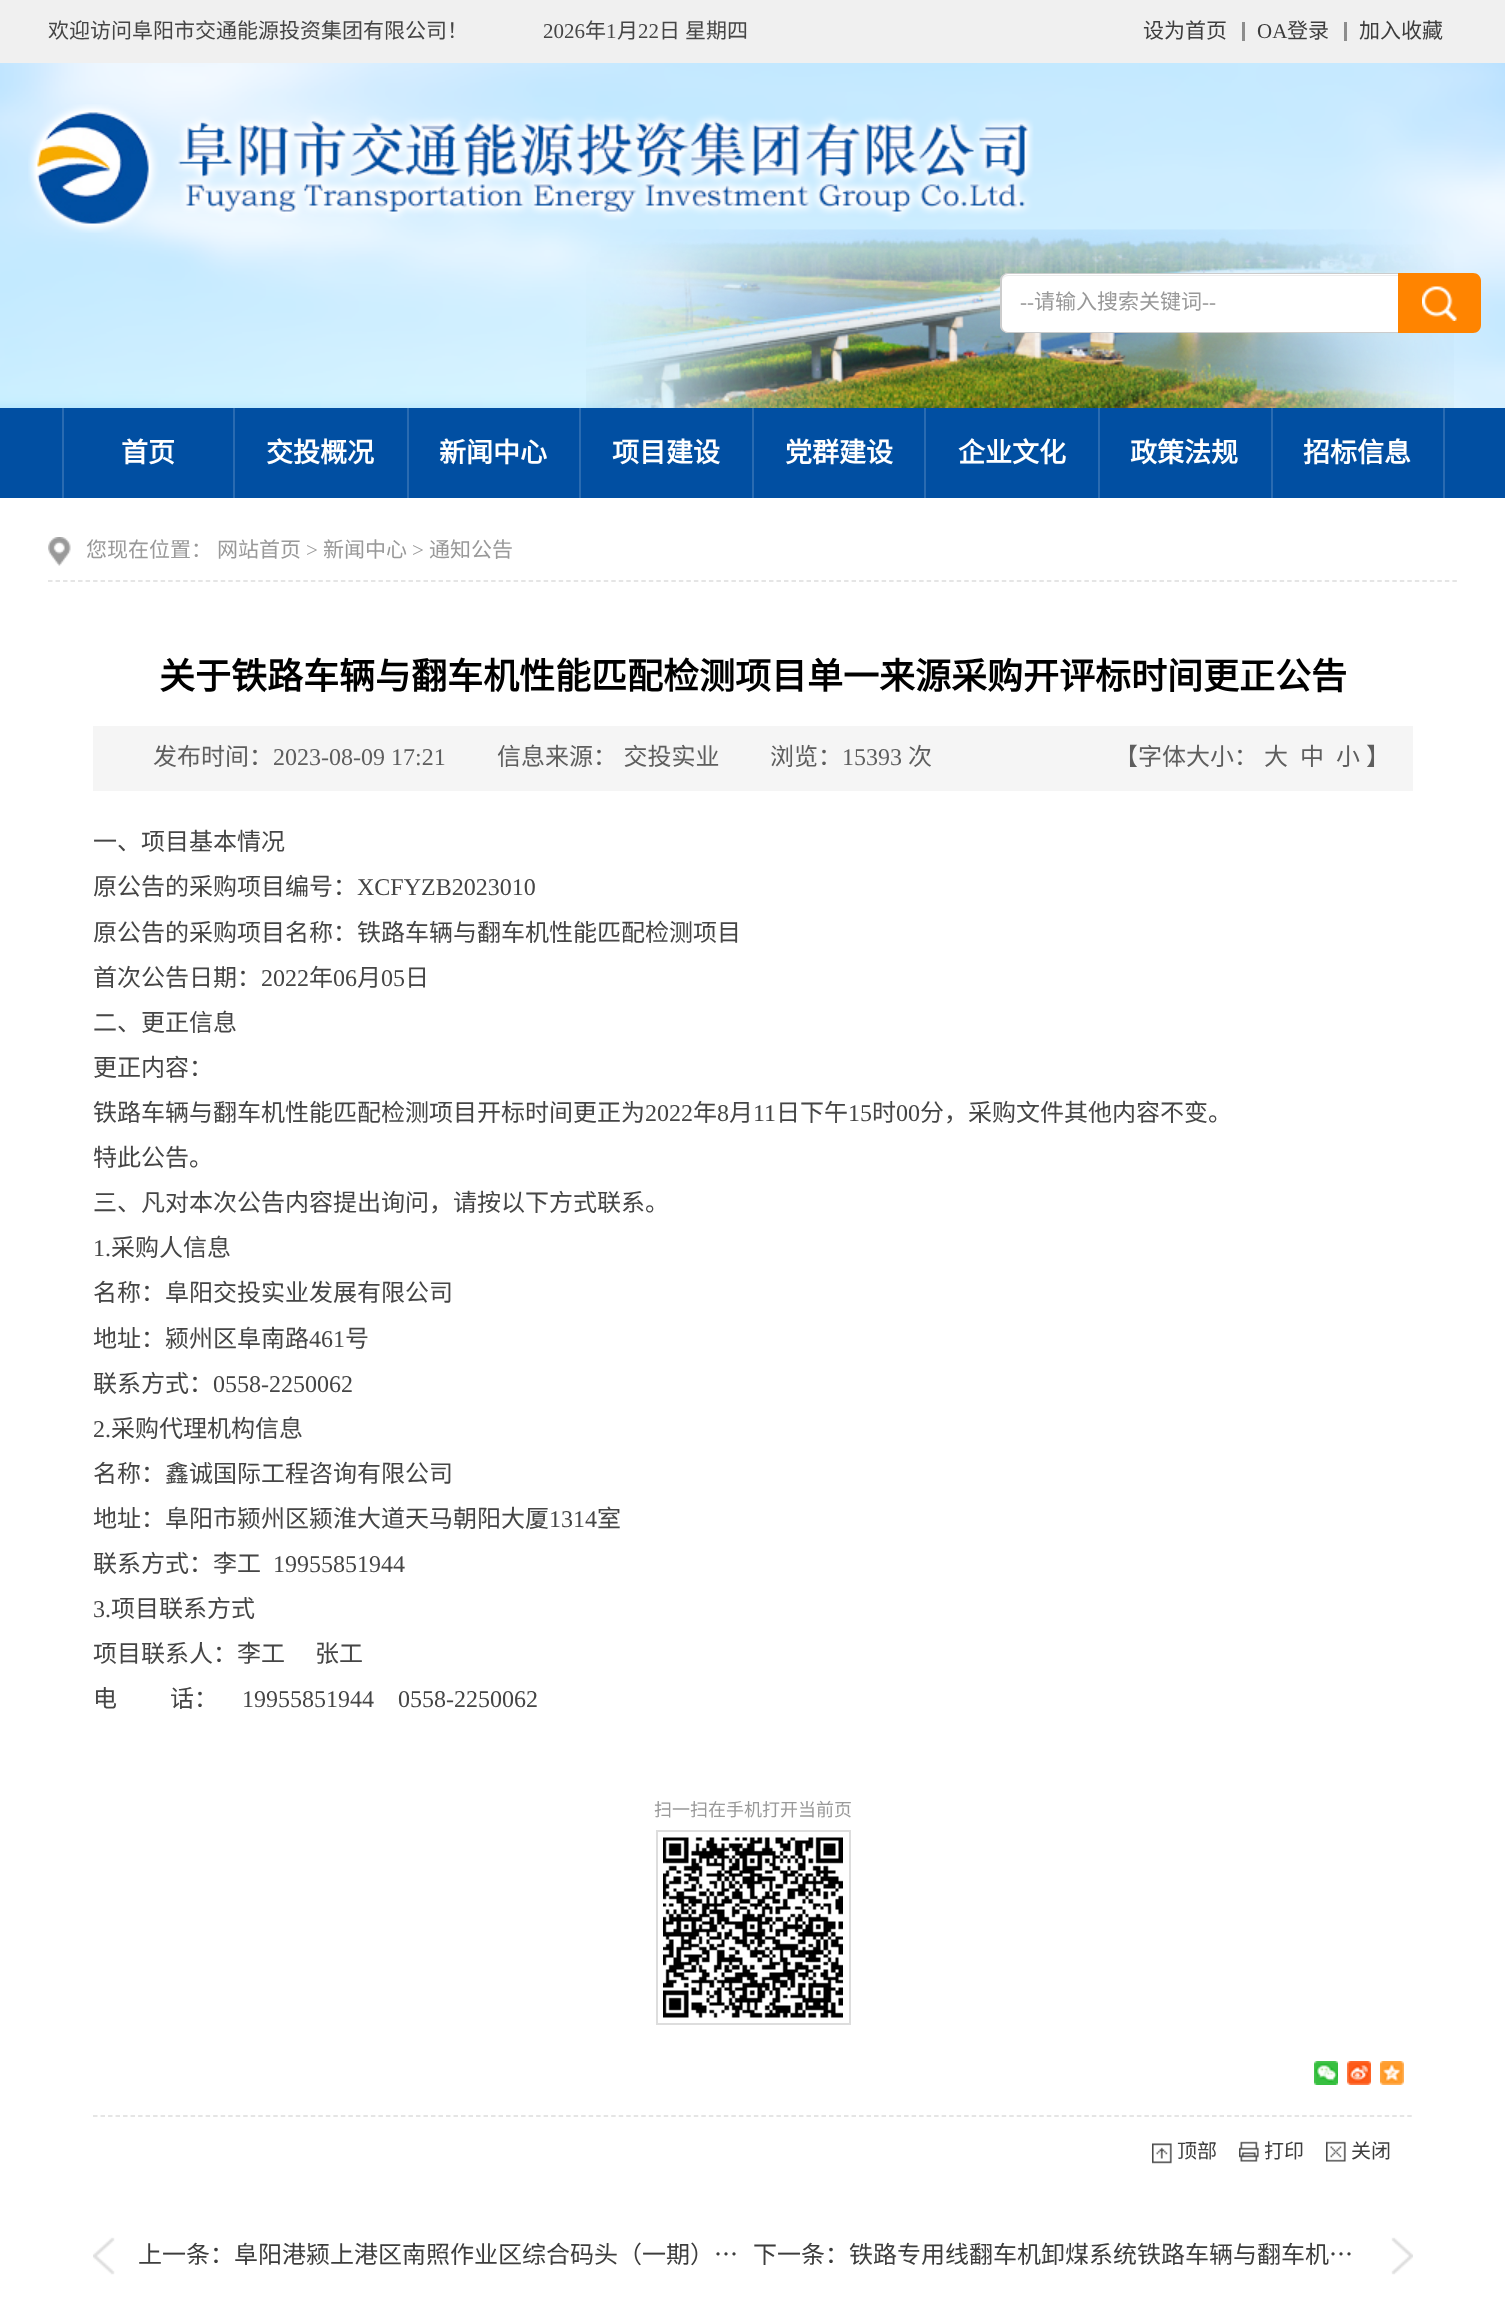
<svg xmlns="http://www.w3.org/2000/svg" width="1505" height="2313">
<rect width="100%" height="100%" fill="#fff"/>
<rect width="1505" height="63" fill="#f0f0f0"/>
<text x="48" y="38" style="font-family:Noto Sans CJK SC;font-size:21px;fill:#454545">欢迎访问阜阳市交通能源投资集团有限公司！</text>
<text x="543" y="38" style="font-family:Liberation Serif;font-size:21px;fill:#454545">2026</text>
<text x="585" y="38" style="font-family:Noto Sans CJK SC;font-size:21px;fill:#454545">年</text>
<text x="606" y="38" style="font-family:Liberation Serif;font-size:21px;fill:#454545">1</text>
<text x="617" y="38" style="font-family:Noto Sans CJK SC;font-size:21px;fill:#454545">月</text>
<text x="638" y="38" style="font-family:Liberation Serif;font-size:21px;fill:#454545">22</text>
<text x="659" y="38" style="font-family:Noto Sans CJK SC;font-size:21px;fill:#454545">日</text>
<text x="685" y="38" style="font-family:Noto Sans CJK SC;font-size:21px;fill:#454545">星期四</text>
<text x="1143" y="38" style="font-family:Noto Sans CJK SC;font-size:21px;fill:#3d3d3d">设为首页</text>
<rect x="1242" y="22" width="3" height="19" fill="#8d8d8d"/>
<text x="1257" y="38" style="font-family:Liberation Serif;font-size:21px;fill:#3d3d3d">OA</text>
<text x="1287" y="38" style="font-family:Noto Sans CJK SC;font-size:21px;fill:#3d3d3d">登录</text>
<rect x="1344" y="22" width="3" height="19" fill="#8d8d8d"/>
<text x="1359" y="38" style="font-family:Noto Sans CJK SC;font-size:21px;fill:#3d3d3d">加入收藏</text>
<image x="0" y="63" width="1505" height="345" href="media/1.png"/>
<image x="586" y="229" width="868" height="179" href="media/2.png"/>
<image x="28" y="104" width="1006" height="129" href="media/3.png"/>
<path d="M1009 273h389v60h-389c-4.5 0-8-3.5-8-8v-44c0-4.5 3.5-8 8-8z" fill="#fff"/>
<path d="M1008 276h390v-1h-390c-3 0-6 3-6 6v1c0-3 3-6 6-6z" fill="#ececec"/>
<path d="M1008 273h390v60h-390c-4 0-8-3-8-7v-46c0-4 4-7 8-7zm0 1h390v58h-390c-3 0-6-3-6-6v-46c0-3 3-6 6-6z" fill="#ccc" fill-rule="evenodd"/>
<text x="1020" y="309" style="font-family:Liberation Serif;font-size:21px;fill:#999">--</text>
<text x="1034" y="309" style="font-family:Noto Sans CJK SC;font-size:21px;fill:#999">请输入搜索关键词</text>
<text x="1202" y="309" style="font-family:Liberation Serif;font-size:21px;fill:#999">--</text>
<path d="M1398 273h75c4.5 0 8 3.5 8 8v44c0 4.5-3.5 8-8 8h-75z" fill="#ff8400"/>
<image x="1422" y="286" width="35" height="35" href="media/4.png"/>
<rect y="408" width="1505" height="90" fill="#014fa2"/>
<rect x="233" y="408" width="2" height="90" fill="#2a6bb1"/>
<rect x="62" y="408" width="2" height="90" fill="#2a6bb1"/>
<text x="121" y="462" style="font-family:Noto Sans CJK SC;font-size:27px;font-weight:bold;fill:#fff">首页</text>
<rect x="407" y="408" width="2" height="90" fill="#2a6bb1"/>
<text x="266" y="462" style="font-family:Noto Sans CJK SC;font-size:27px;font-weight:bold;fill:#fff">交投概况</text>
<rect x="579" y="408" width="2" height="90" fill="#2a6bb1"/>
<text x="439" y="462" style="font-family:Noto Sans CJK SC;font-size:27px;font-weight:bold;fill:#fff">新闻中心</text>
<rect x="752" y="408" width="2" height="90" fill="#2a6bb1"/>
<text x="612" y="462" style="font-family:Noto Sans CJK SC;font-size:27px;font-weight:bold;fill:#fff">项目建设</text>
<rect x="924" y="408" width="2" height="90" fill="#2a6bb1"/>
<text x="785" y="462" style="font-family:Noto Sans CJK SC;font-size:27px;font-weight:bold;fill:#fff">党群建设</text>
<rect x="1098" y="408" width="2" height="90" fill="#2a6bb1"/>
<text x="958" y="462" style="font-family:Noto Sans CJK SC;font-size:27px;font-weight:bold;fill:#fff">企业文化</text>
<rect x="1271" y="408" width="2" height="90" fill="#2a6bb1"/>
<text x="1130" y="462" style="font-family:Noto Sans CJK SC;font-size:27px;font-weight:bold;fill:#fff">政策法规</text>
<rect x="1443" y="408" width="2" height="90" fill="#2a6bb1"/>
<text x="1303" y="462" style="font-family:Noto Sans CJK SC;font-size:27px;font-weight:bold;fill:#fff">招标信息</text>
<image x="48" y="537" width="23" height="29" href="media/5.png"/>
<path d="M48 581h1410" fill="none" stroke="#ddd" stroke-width="1.5" stroke-dasharray="4.5 3.01"/>
<text x="86" y="557" style="font-family:Noto Sans CJK SC;font-size:21px;fill:#999">您现在位置：</text>
<text x="217" y="557" style="font-family:Noto Sans CJK SC;font-size:21px;fill:#999">网站首页</text>
<text x="306" y="557" style="font-family:Liberation Serif;font-size:21px;fill:#999">&gt;</text>
<text x="323" y="557" style="font-family:Noto Sans CJK SC;font-size:21px;fill:#999">新闻中心</text>
<text x="412" y="557" style="font-family:Liberation Serif;font-size:21px;fill:#999">&gt;</text>
<text x="429" y="557" style="font-family:Noto Sans CJK SC;font-size:21px;fill:#999">通知公告</text>
<text x="159" y="689" style="font-family:Noto Sans CJK SC;font-size:36px;font-weight:bold;fill:#000">关于铁路车辆与翻车机性能匹配检测项目单一来源采购开评标时间更正公告</text>
<rect x="93" y="726" width="1320" height="65" fill="#f5f5f5"/>
<text x="153" y="765" style="font-family:Noto Sans CJK SC;font-size:24px;fill:#5e5e5e">发布时间：</text>
<text x="273" y="765" style="font-family:Liberation Serif;font-size:24px;fill:#5e5e5e">2023-08-09 17:21</text>
<text x="497" y="765" word-spacing="1" style="font-family:Noto Sans CJK SC;font-size:24px;fill:#5e5e5e">信息来源： 交投实业</text>
<text x="770" y="765" style="font-family:Noto Sans CJK SC;font-size:24px;fill:#5e5e5e">浏览：</text>
<text x="842" y="765" style="font-family:Liberation Serif;font-size:24px;fill:#5e5e5e">15393</text>
<text x="908" y="765" style="font-family:Noto Sans CJK SC;font-size:24px;fill:#5e5e5e">次</text>
<text x="1114" y="765" style="font-family:Noto Sans CJK SC;font-size:24px;fill:#5e5e5e">【字体大小：</text>
<text x="1264" y="765" style="font-family:Noto Sans CJK SC;font-size:24px;fill:#5e5e5e">大</text>
<text x="1300" y="765" style="font-family:Noto Sans CJK SC;font-size:24px;fill:#5e5e5e">中</text>
<text x="1336" y="765" style="font-family:Noto Sans CJK SC;font-size:24px;fill:#5e5e5e">小</text>
<text x="1366" y="765" style="font-family:Noto Sans CJK SC;font-size:24px;fill:#5e5e5e">】</text>
<text x="93" y="850" style="font-family:Noto Sans CJK SC;font-size:24px;fill:#454545">一、项目基本情况</text>
<text x="93" y="895" style="font-family:Noto Sans CJK SC;font-size:24px;fill:#454545">原公告的采购项目编号：</text>
<text x="357" y="895" style="font-family:Liberation Serif;font-size:24px;fill:#454545">XCFYZB2023010</text>
<text x="93" y="941" style="font-family:Noto Sans CJK SC;font-size:24px;fill:#454545">原公告的采购项目名称：铁路车辆与翻车机性能匹配检测项目</text>
<text x="93" y="986" style="font-family:Noto Sans CJK SC;font-size:24px;fill:#454545">首次公告日期：</text>
<text x="261" y="986" style="font-family:Liberation Serif;font-size:24px;fill:#454545">2022</text>
<text x="309" y="986" style="font-family:Noto Sans CJK SC;font-size:24px;fill:#454545">年</text>
<text x="333" y="986" style="font-family:Liberation Serif;font-size:24px;fill:#454545">06</text>
<text x="357" y="986" style="font-family:Noto Sans CJK SC;font-size:24px;fill:#454545">月</text>
<text x="381" y="986" style="font-family:Liberation Serif;font-size:24px;fill:#454545">05</text>
<text x="405" y="986" style="font-family:Noto Sans CJK SC;font-size:24px;fill:#454545">日</text>
<text x="93" y="1031" style="font-family:Noto Sans CJK SC;font-size:24px;fill:#454545">二、更正信息</text>
<text x="93" y="1076" style="font-family:Noto Sans CJK SC;font-size:24px;fill:#454545">更正内容：</text>
<text x="93" y="1121" style="font-family:Noto Sans CJK SC;font-size:24px;fill:#454545">铁路车辆与翻车机性能匹配检测项目开标时间更正为</text>
<text x="645" y="1121" style="font-family:Liberation Serif;font-size:24px;fill:#454545">2022</text>
<text x="693" y="1121" style="font-family:Noto Sans CJK SC;font-size:24px;fill:#454545">年</text>
<text x="717" y="1121" style="font-family:Liberation Serif;font-size:24px;fill:#454545">8</text>
<text x="729" y="1121" style="font-family:Noto Sans CJK SC;font-size:24px;fill:#454545">月</text>
<text x="753" y="1121" style="font-family:Liberation Serif;font-size:24px;fill:#454545">11</text>
<text x="776" y="1121" style="font-family:Noto Sans CJK SC;font-size:24px;fill:#454545">日下午</text>
<text x="848" y="1121" style="font-family:Liberation Serif;font-size:24px;fill:#454545">15</text>
<text x="872" y="1121" style="font-family:Noto Sans CJK SC;font-size:24px;fill:#454545">时</text>
<text x="896" y="1121" style="font-family:Liberation Serif;font-size:24px;fill:#454545">00</text>
<text x="920" y="1121" style="font-family:Noto Sans CJK SC;font-size:24px;fill:#454545">分，采购文件其他内容不变。</text>
<text x="93" y="1166" style="font-family:Noto Sans CJK SC;font-size:24px;fill:#454545">特此公告。</text>
<text x="93" y="1211" style="font-family:Noto Sans CJK SC;font-size:24px;fill:#454545">三、凡对本次公告内容提出询问，请按以下方式联系。</text>
<text x="93" y="1256" style="font-family:Liberation Serif;font-size:24px;fill:#454545">1.</text>
<text x="111" y="1256" style="font-family:Noto Sans CJK SC;font-size:24px;fill:#454545">采购人信息</text>
<text x="93" y="1301" style="font-family:Noto Sans CJK SC;font-size:24px;fill:#454545">名称：阜阳交投实业发展有限公司</text>
<text x="93" y="1347" style="font-family:Noto Sans CJK SC;font-size:24px;fill:#454545">地址：颍州区阜南路</text>
<text x="309" y="1347" style="font-family:Liberation Serif;font-size:24px;fill:#454545">461</text>
<text x="345" y="1347" style="font-family:Noto Sans CJK SC;font-size:24px;fill:#454545">号</text>
<text x="93" y="1392" style="font-family:Noto Sans CJK SC;font-size:24px;fill:#454545">联系方式：</text>
<text x="213" y="1392" style="font-family:Liberation Serif;font-size:24px;fill:#454545">0558-2250062</text>
<text x="93" y="1437" style="font-family:Liberation Serif;font-size:24px;fill:#454545">2.</text>
<text x="111" y="1437" style="font-family:Noto Sans CJK SC;font-size:24px;fill:#454545">采购代理机构信息</text>
<text x="93" y="1482" style="font-family:Noto Sans CJK SC;font-size:24px;fill:#454545">名称：鑫诚国际工程咨询有限公司</text>
<text x="93" y="1527" style="font-family:Noto Sans CJK SC;font-size:24px;fill:#454545">地址：阜阳市颍州区颍淮大道天马朝阳大厦</text>
<text x="549" y="1527" style="font-family:Liberation Serif;font-size:24px;fill:#454545">1314</text>
<text x="597" y="1527" style="font-family:Noto Sans CJK SC;font-size:24px;fill:#454545">室</text>
<text x="93" y="1572" style="font-family:Noto Sans CJK SC;font-size:24px;fill:#454545">联系方式：李工</text>
<text x="273" y="1572" style="font-family:Liberation Serif;font-size:24px;fill:#454545">19955851944</text>
<text x="93" y="1617" style="font-family:Liberation Serif;font-size:24px;fill:#454545">3.</text>
<text x="111" y="1617" style="font-family:Noto Sans CJK SC;font-size:24px;fill:#454545">项目联系方式</text>
<text x="93" y="1662" style="font-family:Noto Sans CJK SC;font-size:24px;fill:#454545">项目联系人：李工</text>
<text x="315" y="1662" style="font-family:Noto Sans CJK SC;font-size:24px;fill:#454545">张工</text>
<text x="93" y="1707" style="font-family:Noto Sans CJK SC;font-size:24px;fill:#454545">电</text>
<text x="170" y="1707" style="font-family:Noto Sans CJK SC;font-size:24px;fill:#454545">话：</text>
<text x="242" y="1707" style="font-family:Liberation Serif;font-size:24px;fill:#454545">19955851944</text>
<text x="398" y="1707" style="font-family:Liberation Serif;font-size:24px;fill:#454545">0558-2250062</text>
<text x="654" y="1816" style="font-family:Noto Sans CJK SC;font-size:18px;fill:#999">扫一扫在手机打开当前页</text>
<rect x="657" y="1831" width="193" height="193" fill="none" stroke="#ddd" stroke-width="2"/>
<image x="663" y="1837" width="180" height="181" href="media/6.png"/>
<path d="M93 2116h1320" fill="none" stroke="#ddd" stroke-width="1.5" stroke-dasharray="4.5 3.01"/>
<image x="1314" y="2061" width="24" height="24" href="media/7.png"/>
<image x="1347" y="2061" width="24" height="24" href="media/8.png"/>
<image x="1380" y="2061" width="24" height="24" href="media/9.png"/>
<image x="1152" y="2143" width="20" height="21" href="media/10.png"/>
<text x="1177" y="2158" style="font-family:Noto Sans CJK SC;font-size:20px;fill:#3d3d3d">顶部</text>
<image x="1239" y="2141" width="20" height="21" href="media/11.png"/>
<text x="1264" y="2158" style="font-family:Noto Sans CJK SC;font-size:20px;fill:#3d3d3d">打印</text>
<image x="1326" y="2141" width="20" height="21" href="media/12.png"/>
<text x="1351" y="2158" style="font-family:Noto Sans CJK SC;font-size:20px;fill:#3d3d3d">关闭</text>
<image x="93" y="2237" width="22" height="38" href="media/13.png"/>
<text x="138" y="2263" style="font-family:Noto Sans CJK SC;font-size:24px;fill:#3d3d3d">上一条：阜阳港颍上港区南照作业区综合码头（一期）…</text>
<image x="1391" y="2237" width="22" height="38" href="media/14.png"/>
<text x="753" y="2263" style="font-family:Noto Sans CJK SC;font-size:24px;fill:#3d3d3d">下一条：铁路专用线翻车机卸煤系统铁路车辆与翻车机…</text>
</svg>
